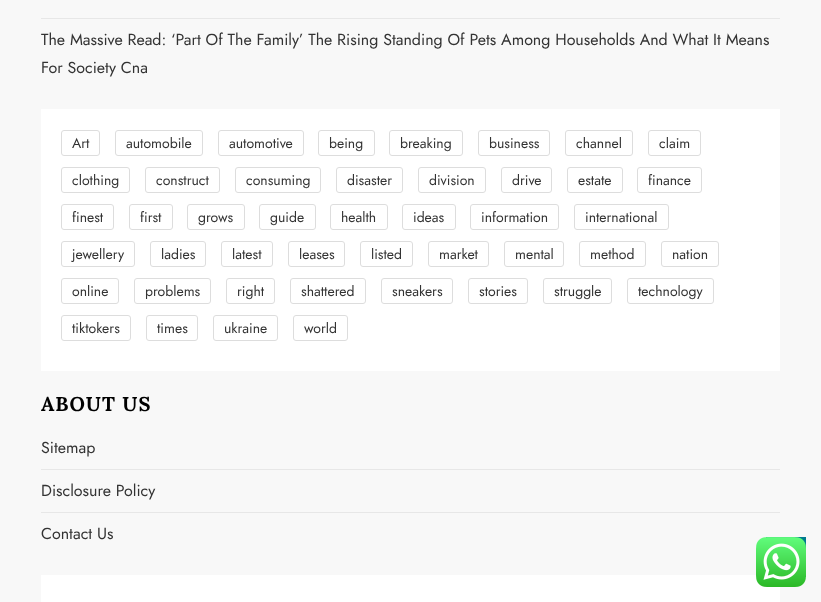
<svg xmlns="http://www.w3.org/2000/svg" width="821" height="602">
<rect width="100%" height="100%" fill="#f8f8f8"/>
<rect x="41" y="18" width="739" height="1" fill="#e7e7e7"/>
<text x="41" y="45" style="font-family:Jost;font-size:16px;fill:#333">The Massive Read: ‘Part Of The Family’ The Rising Standing Of Pets Among Households And What It Means</text>
<text x="41" y="73" style="font-family:Jost;font-size:16px;fill:#333">For Society Cna</text>
<rect x="41" y="109" width="739" height="262" fill="#fff"/>
<rect x="61.5" y="130.5" width="38" height="25" rx="2.5" fill="none" stroke="#ddd"/>
<text x="72" y="148" style="font-family:Jost;font-size:14px;fill:#333">Art</text>
<rect x="115.5" y="130.5" width="87" height="25" rx="2.5" fill="none" stroke="#ddd"/>
<text x="126" y="148" style="font-family:Jost;font-size:14px;fill:#333">automobile</text>
<rect x="218.5" y="130.5" width="85" height="25" rx="2.5" fill="none" stroke="#ddd"/>
<text x="229" y="148" style="font-family:Jost;font-size:14px;fill:#333">automotive</text>
<rect x="318.5" y="130.5" width="56" height="25" rx="2.5" fill="none" stroke="#ddd"/>
<text x="329" y="148" style="font-family:Jost;font-size:14px;fill:#333">being</text>
<rect x="389.5" y="130.5" width="73" height="25" rx="2.5" fill="none" stroke="#ddd"/>
<text x="400" y="148" style="font-family:Jost;font-size:14px;fill:#333">breaking</text>
<rect x="478.5" y="130.5" width="71" height="25" rx="2.5" fill="none" stroke="#ddd"/>
<text x="489" y="148" style="font-family:Jost;font-size:14px;fill:#333">business</text>
<rect x="565.5" y="130.5" width="67" height="25" rx="2.5" fill="none" stroke="#ddd"/>
<text x="576" y="148" style="font-family:Jost;font-size:14px;fill:#333">channel</text>
<rect x="648.5" y="130.5" width="52" height="25" rx="2.5" fill="none" stroke="#ddd"/>
<text x="659" y="148" style="font-family:Jost;font-size:14px;fill:#333">claim</text>
<rect x="61.5" y="167.5" width="68" height="25" rx="2.5" fill="none" stroke="#ddd"/>
<text x="72" y="185" style="font-family:Jost;font-size:14px;fill:#333">clothing</text>
<rect x="145.5" y="167.5" width="74" height="25" rx="2.5" fill="none" stroke="#ddd"/>
<text x="156" y="185" style="font-family:Jost;font-size:14px;fill:#333">construct</text>
<rect x="235.5" y="167.5" width="85" height="25" rx="2.5" fill="none" stroke="#ddd"/>
<text x="246" y="185" style="font-family:Jost;font-size:14px;fill:#333">consuming</text>
<rect x="336.5" y="167.5" width="66" height="25" rx="2.5" fill="none" stroke="#ddd"/>
<text x="347" y="185" style="font-family:Jost;font-size:14px;fill:#333">disaster</text>
<rect x="418.5" y="167.5" width="67" height="25" rx="2.5" fill="none" stroke="#ddd"/>
<text x="429" y="185" style="font-family:Jost;font-size:14px;fill:#333">division</text>
<rect x="501.5" y="167.5" width="50" height="25" rx="2.5" fill="none" stroke="#ddd"/>
<text x="512" y="185" style="font-family:Jost;font-size:14px;fill:#333">drive</text>
<rect x="567.5" y="167.5" width="55" height="25" rx="2.5" fill="none" stroke="#ddd"/>
<text x="578" y="185" style="font-family:Jost;font-size:14px;fill:#333">estate</text>
<rect x="637.5" y="167.5" width="64" height="25" rx="2.5" fill="none" stroke="#ddd"/>
<text x="648" y="185" style="font-family:Jost;font-size:14px;fill:#333">finance</text>
<rect x="61.5" y="204.5" width="52" height="25" rx="2.5" fill="none" stroke="#ddd"/>
<text x="72" y="222" style="font-family:Jost;font-size:14px;fill:#333">finest</text>
<rect x="129.5" y="204.5" width="43" height="25" rx="2.5" fill="none" stroke="#ddd"/>
<text x="140" y="222" style="font-family:Jost;font-size:14px;fill:#333">first</text>
<rect x="187.5" y="204.5" width="57" height="25" rx="2.5" fill="none" stroke="#ddd"/>
<text x="198" y="222" style="font-family:Jost;font-size:14px;fill:#333">grows</text>
<rect x="259.5" y="204.5" width="56" height="25" rx="2.5" fill="none" stroke="#ddd"/>
<text x="270" y="222" style="font-family:Jost;font-size:14px;fill:#333">guide</text>
<rect x="330.5" y="204.5" width="57" height="25" rx="2.5" fill="none" stroke="#ddd"/>
<text x="341" y="222" style="font-family:Jost;font-size:14px;fill:#333">health</text>
<rect x="402.5" y="204.5" width="53" height="25" rx="2.5" fill="none" stroke="#ddd"/>
<text x="413" y="222" style="font-family:Jost;font-size:14px;fill:#333">ideas</text>
<rect x="470.5" y="204.5" width="88" height="25" rx="2.5" fill="none" stroke="#ddd"/>
<text x="481" y="222" style="font-family:Jost;font-size:14px;fill:#333">information</text>
<rect x="574.5" y="204.5" width="94" height="25" rx="2.5" fill="none" stroke="#ddd"/>
<text x="585" y="222" style="font-family:Jost;font-size:14px;fill:#333">international</text>
<rect x="61.5" y="241.5" width="73" height="25" rx="2.5" fill="none" stroke="#ddd"/>
<text x="72" y="259" style="font-family:Jost;font-size:14px;fill:#333">jewellery</text>
<rect x="150.5" y="241.5" width="55" height="25" rx="2.5" fill="none" stroke="#ddd"/>
<text x="161" y="259" style="font-family:Jost;font-size:14px;fill:#333">ladies</text>
<rect x="221.5" y="241.5" width="51" height="25" rx="2.5" fill="none" stroke="#ddd"/>
<text x="232" y="259" style="font-family:Jost;font-size:14px;fill:#333">latest</text>
<rect x="288.5" y="241.5" width="56" height="25" rx="2.5" fill="none" stroke="#ddd"/>
<text x="299" y="259" style="font-family:Jost;font-size:14px;fill:#333">leases</text>
<rect x="360.5" y="241.5" width="52" height="25" rx="2.5" fill="none" stroke="#ddd"/>
<text x="371" y="259" style="font-family:Jost;font-size:14px;fill:#333">listed</text>
<rect x="428.5" y="241.5" width="60" height="25" rx="2.5" fill="none" stroke="#ddd"/>
<text x="439" y="259" style="font-family:Jost;font-size:14px;fill:#333">market</text>
<rect x="504.5" y="241.5" width="59" height="25" rx="2.5" fill="none" stroke="#ddd"/>
<text x="515" y="259" style="font-family:Jost;font-size:14px;fill:#333">mental</text>
<rect x="579.5" y="241.5" width="66" height="25" rx="2.5" fill="none" stroke="#ddd"/>
<text x="590" y="259" style="font-family:Jost;font-size:14px;fill:#333">method</text>
<rect x="661.5" y="241.5" width="57" height="25" rx="2.5" fill="none" stroke="#ddd"/>
<text x="672" y="259" style="font-family:Jost;font-size:14px;fill:#333">nation</text>
<rect x="61.5" y="278.5" width="57" height="25" rx="2.5" fill="none" stroke="#ddd"/>
<text x="72" y="296" style="font-family:Jost;font-size:14px;fill:#333">online</text>
<rect x="134.5" y="278.5" width="76" height="25" rx="2.5" fill="none" stroke="#ddd"/>
<text x="145" y="296" style="font-family:Jost;font-size:14px;fill:#333">problems</text>
<rect x="226.5" y="278.5" width="48" height="25" rx="2.5" fill="none" stroke="#ddd"/>
<text x="237" y="296" style="font-family:Jost;font-size:14px;fill:#333">right</text>
<rect x="290.5" y="278.5" width="75" height="25" rx="2.5" fill="none" stroke="#ddd"/>
<text x="301" y="296" style="font-family:Jost;font-size:14px;fill:#333">shattered</text>
<rect x="381.5" y="278.5" width="71" height="25" rx="2.5" fill="none" stroke="#ddd"/>
<text x="392" y="296" style="font-family:Jost;font-size:14px;fill:#333">sneakers</text>
<rect x="468.5" y="278.5" width="59" height="25" rx="2.5" fill="none" stroke="#ddd"/>
<text x="479" y="296" style="font-family:Jost;font-size:14px;fill:#333">stories</text>
<rect x="543.5" y="278.5" width="68" height="25" rx="2.5" fill="none" stroke="#ddd"/>
<text x="554" y="296" style="font-family:Jost;font-size:14px;fill:#333">struggle</text>
<rect x="627.5" y="278.5" width="86" height="25" rx="2.5" fill="none" stroke="#ddd"/>
<text x="638" y="296" style="font-family:Jost;font-size:14px;fill:#333">technology</text>
<rect x="61.5" y="315.5" width="69" height="25" rx="2.5" fill="none" stroke="#ddd"/>
<text x="72" y="333" style="font-family:Jost;font-size:14px;fill:#333">tiktokers</text>
<rect x="146.5" y="315.5" width="51" height="25" rx="2.5" fill="none" stroke="#ddd"/>
<text x="157" y="333" style="font-family:Jost;font-size:14px;fill:#333">times</text>
<rect x="213.5" y="315.5" width="64" height="25" rx="2.5" fill="none" stroke="#ddd"/>
<text x="224" y="333" style="font-family:Jost;font-size:14px;fill:#333">ukraine</text>
<rect x="293.5" y="315.5" width="54" height="25" rx="2.5" fill="none" stroke="#ddd"/>
<text x="304" y="333" style="font-family:Jost;font-size:14px;fill:#333">world</text>
<text x="41" y="411" style="font-family:Lora;font-size:20px;font-weight:bold;letter-spacing:1px;fill:#000">ABOUT US</text>
<rect x="41" y="469" width="739" height="1" fill="#e7e7e7"/>
<text x="41" y="453" style="font-family:Jost;font-size:16px;fill:#333">Sitemap</text>
<rect x="41" y="512" width="739" height="1" fill="#e7e7e7"/>
<text x="41" y="496" style="font-family:Jost;font-size:16px;fill:#333">Disclosure Policy</text>
<text x="41" y="539" style="font-family:Jost;font-size:16px;fill:#333">Contact Us</text>
<rect x="41" y="575" width="739" height="27" fill="#fff"/>
<rect x="766" y="537" width="40" height="40" fill="#007b8e"/>
<image x="756" y="537" width="50" height="50" href="media/1.png"/>
</svg>
